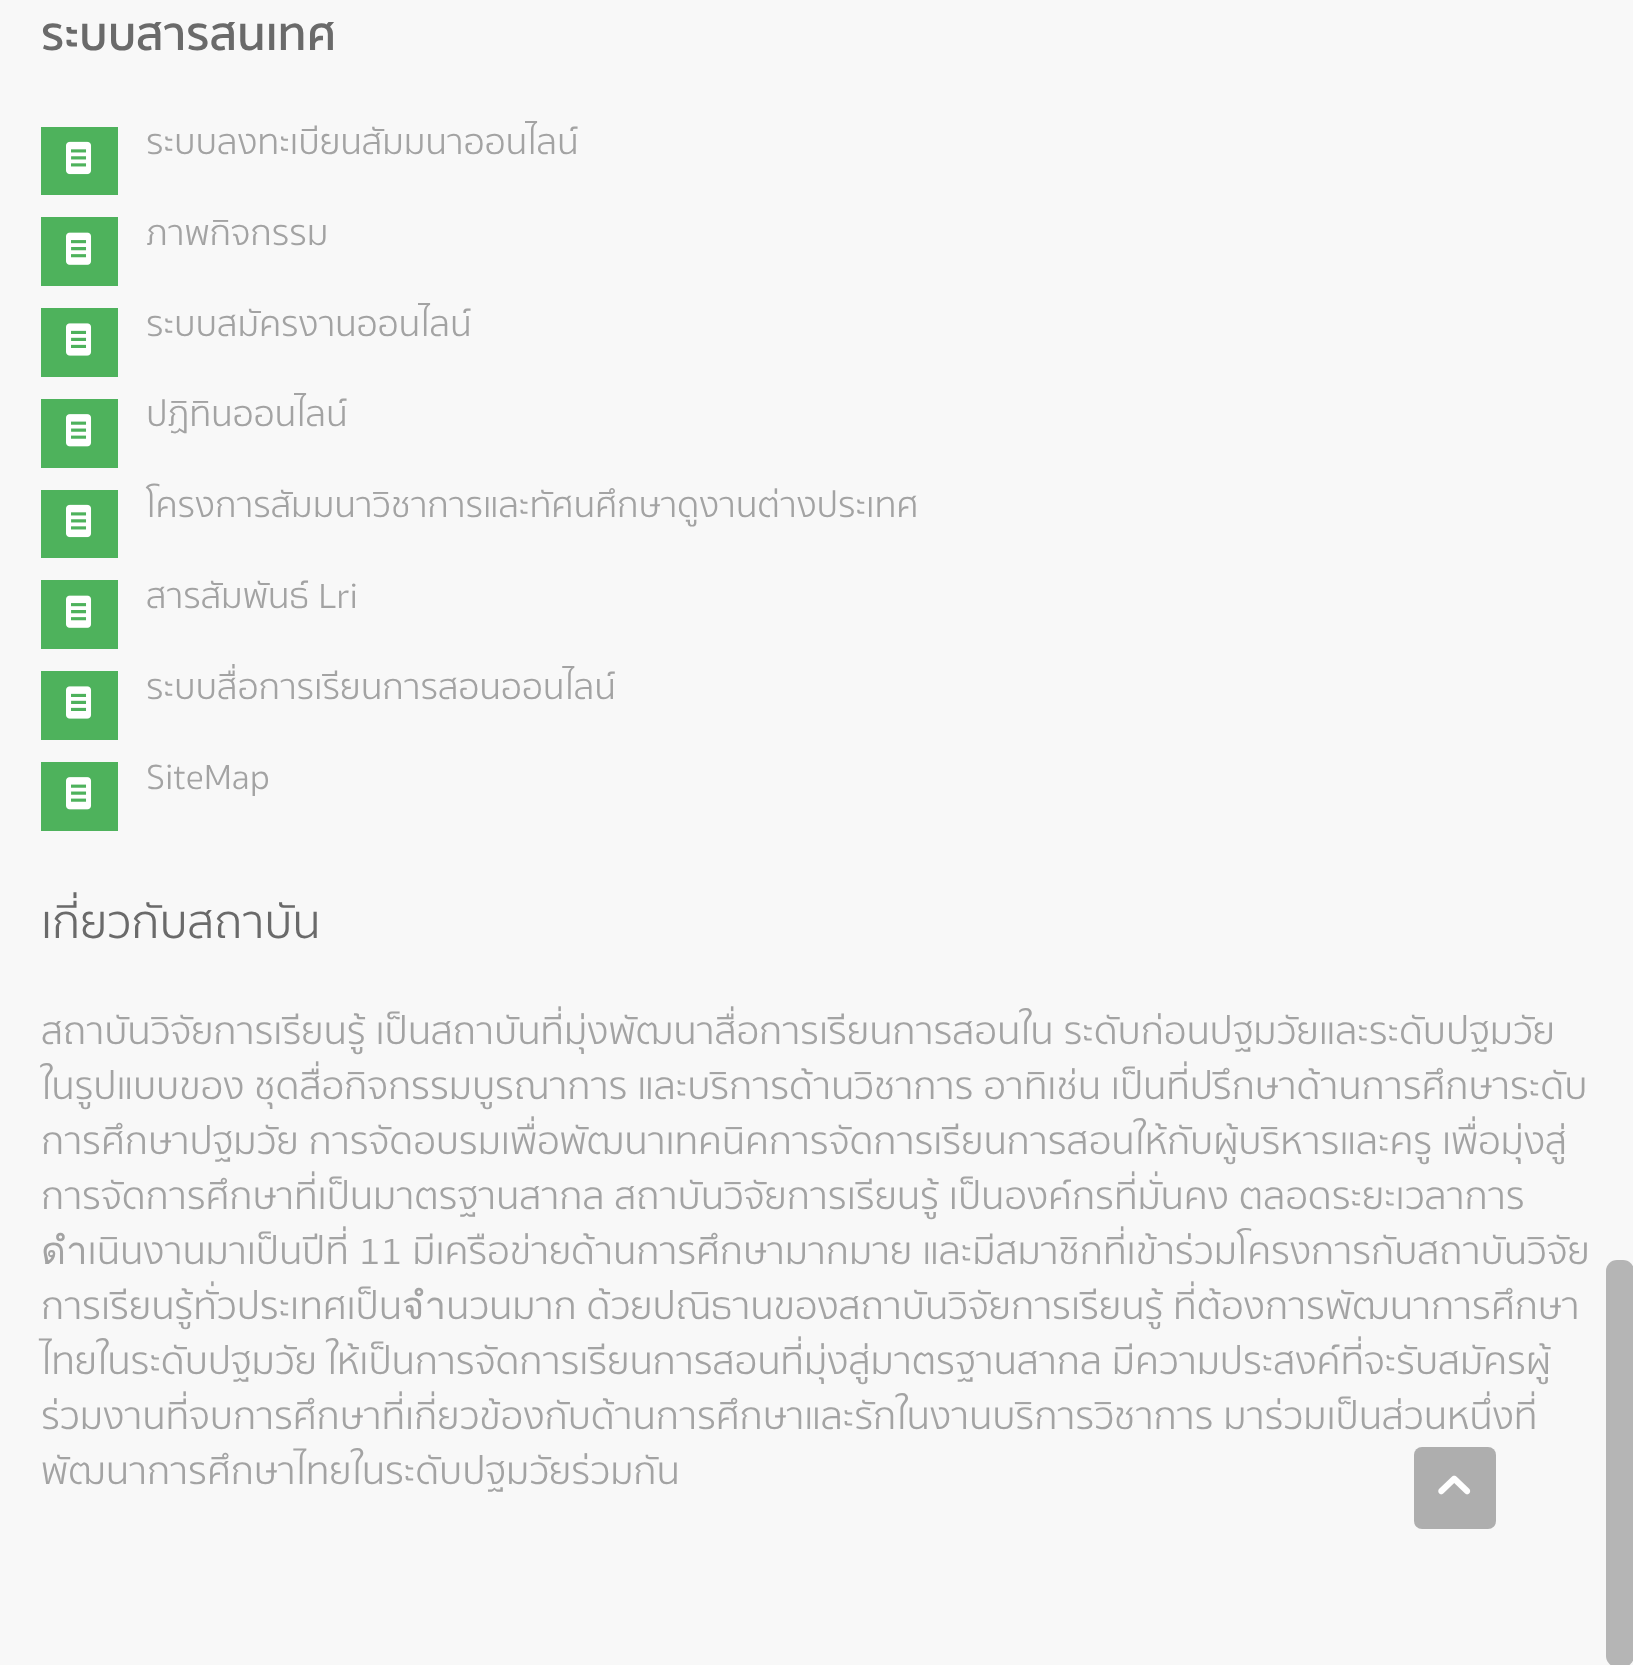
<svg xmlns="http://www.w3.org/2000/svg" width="1633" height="1665">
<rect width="100%" height="100%" fill="#f8f8f8"/>
<text x="41" y="50" style="font-family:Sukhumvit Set;font-size:46.75px;font-weight:600;fill:#6a6a6a">ระบบสารสนเทศ</text>
<rect x="41" y="127" width="77" height="68" fill="#4eb25c"/>
<image x="66" y="141" width="26" height="34" href="media/1.png"/>
<text x="146" y="154" style="font-family:Sukhumvit Set;font-size:35.75px;font-weight:300;fill:#a3a3a3">ระบบลงทะเบียนสัมมนาออนไลน์</text>
<rect x="41" y="217" width="77" height="69" fill="#4eb25c"/>
<image x="66" y="232" width="26" height="33" href="media/2.png"/>
<text x="146" y="245" style="font-family:Sukhumvit Set;font-size:35.75px;font-weight:300;fill:#a3a3a3">ภาพกิจกรรม</text>
<rect x="41" y="308" width="77" height="69" fill="#4eb25c"/>
<image x="66" y="323" width="26" height="33" href="media/3.png"/>
<text x="146" y="336" style="font-family:Sukhumvit Set;font-size:35.75px;font-weight:300;fill:#a3a3a3">ระบบสมัครงานออนไลน์</text>
<rect x="41" y="399" width="77" height="69" fill="#4eb25c"/>
<image x="66" y="414" width="26" height="33" href="media/4.png"/>
<text x="146" y="426" style="font-family:Sukhumvit Set;font-size:35.75px;font-weight:300;fill:#a3a3a3">ปฏิทินออนไลน์</text>
<rect x="41" y="490" width="77" height="68" fill="#4eb25c"/>
<image x="66" y="504" width="26" height="34" href="media/1.png"/>
<text x="146" y="517" style="font-family:Sukhumvit Set;font-size:35.75px;font-weight:300;fill:#a3a3a3">โครงการสัมมนาวิชาการและทัศนศึกษาดูงานต่างประเทศ</text>
<rect x="41" y="580" width="77" height="69" fill="#4eb25c"/>
<image x="66" y="595" width="26" height="33" href="media/2.png"/>
<text x="146" y="608" style="font-family:Sukhumvit Set;font-size:35.75px;font-weight:300;fill:#a3a3a3">สารสัมพันธ์ Lri</text>
<rect x="41" y="671" width="77" height="69" fill="#4eb25c"/>
<image x="66" y="686" width="26" height="33" href="media/3.png"/>
<text x="146" y="699" style="font-family:Sukhumvit Set;font-size:35.75px;font-weight:300;fill:#a3a3a3">ระบบสื่อการเรียนการสอนออนไลน์</text>
<rect x="41" y="762" width="77" height="69" fill="#4eb25c"/>
<image x="66" y="777" width="26" height="33" href="media/4.png"/>
<text x="146" y="789" style="font-family:Sukhumvit Set;font-size:35.75px;font-weight:300;fill:#a3a3a3">SiteMap</text>
<text x="41" y="938" style="font-family:Sukhumvit Set;font-size:46.75px;font-weight:300;fill:#6a6a6a">เกี่ยวกับสถาบัน</text>
<text x="41" y="1044" style="font-family:Sukhumvit Set;font-size:38.5px;font-weight:300;fill:#a3a3a3">สถาบันวิจัยการเรียนรู้ เป็นสถาบันที่มุ่งพัฒนาสื่อการเรียนการสอนใน ระดับก่อนปฐมวัยและระดับปฐมวัย</text>
<text x="41" y="1099" style="font-family:Sukhumvit Set;font-size:38.5px;font-weight:300;fill:#a3a3a3">ในรูปแบบของ ชุดสื่อกิจกรรมบูรณาการ และบริการด้านวิชาการ อาทิเช่น เป็นที่ปรึกษาด้านการศึกษาระดับ</text>
<text x="41" y="1154" style="font-family:Sukhumvit Set;font-size:38.5px;font-weight:300;fill:#a3a3a3">การศึกษาปฐมวัย การจัดอบรมเพื่อพัฒนาเทคนิคการจัดการเรียนการสอนให้กับผู้บริหารและครู เพื่อมุ่งสู่</text>
<text x="41" y="1209" style="font-family:Sukhumvit Set;font-size:38.5px;font-weight:300;fill:#a3a3a3">การจัดการศึกษาที่เป็นมาตรฐานสากล สถาบันวิจัยการเรียนรู้ เป็นองค์กรที่มั่นคง ตลอดระยะเวลาการ</text>
<text x="41" y="1264" style="font-family:Sukhumvit Set;font-size:38.5px;font-weight:300;fill:#a3a3a3">ดำเนินงานมาเป็นปีที่ 11 มีเครือข่ายด้านการศึกษามากมาย และมีสมาชิกที่เข้าร่วมโครงการกับสถาบันวิจัย</text>
<text x="41" y="1319" style="font-family:Sukhumvit Set;font-size:38.5px;font-weight:300;fill:#a3a3a3">การเรียนรู้ทั่วประเทศเป็นจำนวนมาก ด้วยปณิธานของสถาบันวิจัยการเรียนรู้ ที่ต้องการพัฒนาการศึกษา</text>
<text x="41" y="1374" style="font-family:Sukhumvit Set;font-size:38.5px;font-weight:300;fill:#a3a3a3">ไทยในระดับปฐมวัย ให้เป็นการจัดการเรียนการสอนที่มุ่งสู่มาตรฐานสากล มีความประสงค์ที่จะรับสมัครผู้</text>
<text x="41" y="1429" style="font-family:Sukhumvit Set;font-size:38.5px;font-weight:300;fill:#a3a3a3">ร่วมงานที่จบการศึกษาที่เกี่ยวข้องกับด้านการศึกษาและรักในงานบริการวิชาการ มาร่วมเป็นส่วนหนึ่งที่</text>
<text x="41" y="1484" style="font-family:Sukhumvit Set;font-size:38.5px;font-weight:300;fill:#a3a3a3">พัฒนาการศึกษาไทยในระดับปฐมวัยร่วมกัน</text>
<rect x="1606" y="1260" width="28" height="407" rx="11" fill="#b5b5b5"/>
<rect x="1414" y="1447" width="82" height="82" rx="8" fill="#aeaeae"/>
<image x="1438" y="1475" width="33" height="20" href="media/5.png"/>
</svg>
